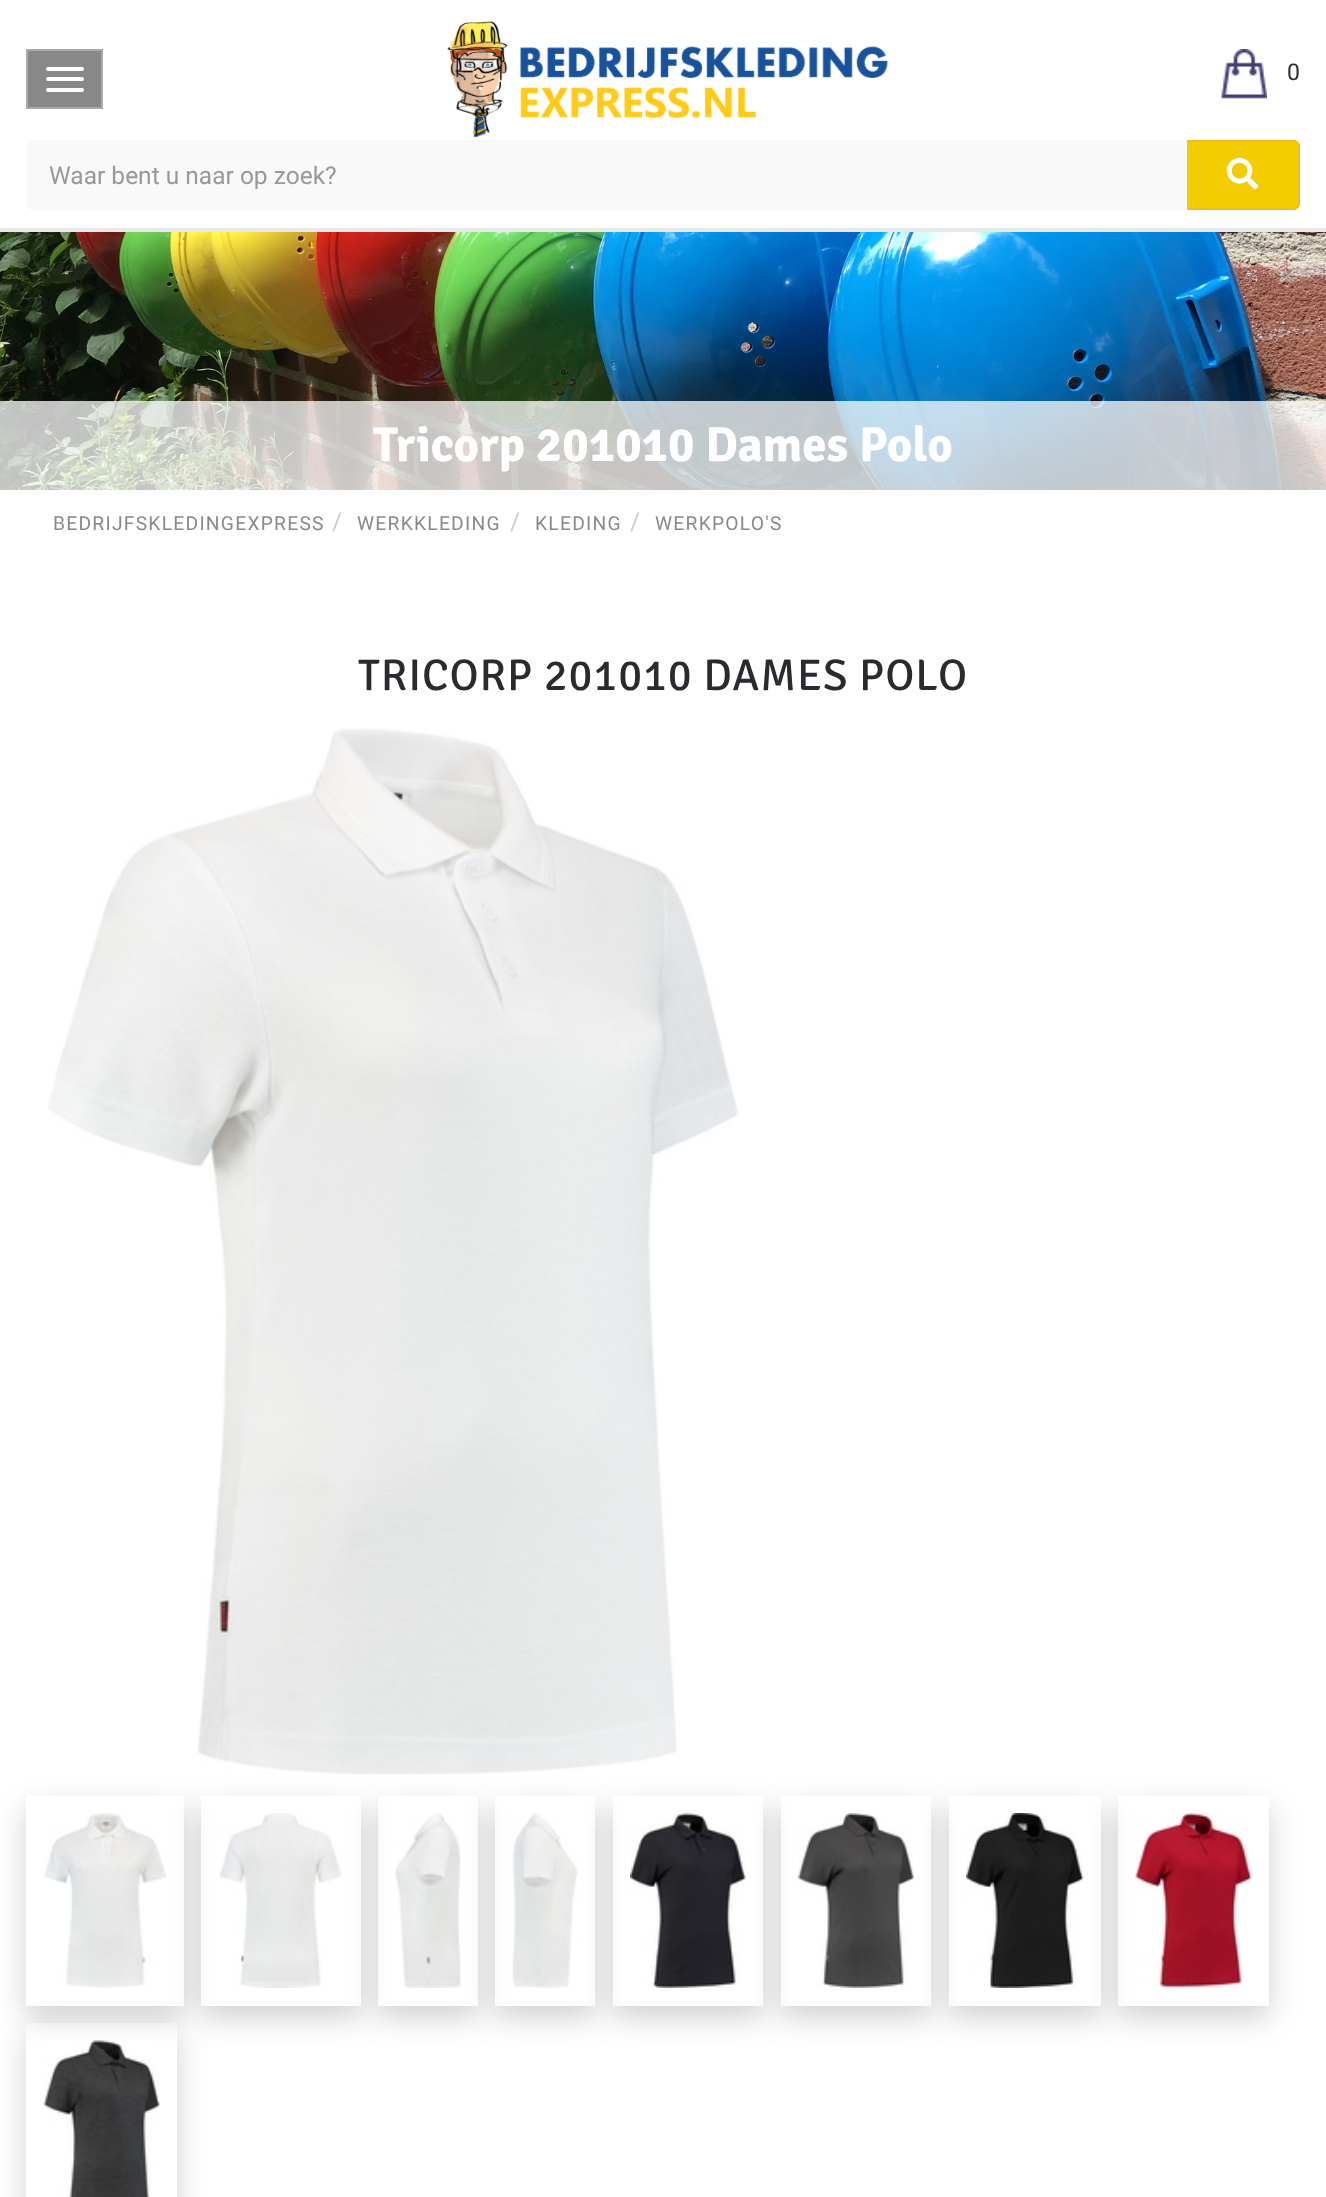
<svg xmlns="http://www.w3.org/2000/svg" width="1326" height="2197">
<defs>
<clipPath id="clip1"><path d="M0 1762h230v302h-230zm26 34h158v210h-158z" clip-rule="evenodd"/></clipPath>
<clipPath id="clip2"><path d="M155 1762h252v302h-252zm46 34h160v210h-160z" clip-rule="evenodd"/></clipPath>
<clipPath id="clip3"><path d="M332 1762h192v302h-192zm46 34h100v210h-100z" clip-rule="evenodd"/></clipPath>
<clipPath id="clip4"><path d="M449 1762h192v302h-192zm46 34h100v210h-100z" clip-rule="evenodd"/></clipPath>
<clipPath id="clip5"><path d="M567 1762h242v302h-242zm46 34h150v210h-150z" clip-rule="evenodd"/></clipPath>
<clipPath id="clip6"><path d="M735 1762h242v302h-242zm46 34h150v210h-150z" clip-rule="evenodd"/></clipPath>
<clipPath id="clip7"><path d="M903 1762h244v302h-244zm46 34h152v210h-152z" clip-rule="evenodd"/></clipPath>
<clipPath id="clip8"><path d="M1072 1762h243v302h-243zm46 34h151v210h-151z" clip-rule="evenodd"/></clipPath>
<clipPath id="clip9"><path d="M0 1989h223v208h-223zm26 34h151v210h-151z" clip-rule="evenodd"/></clipPath>
</defs>
<rect width="100%" height="100%" fill="#fff"/>
<rect x="27" y="50" width="75" height="58" fill="#888" stroke="#aaa" stroke-width="2"/>
<rect x="46" y="67" width="38" height="4" rx="2" fill="#fff"/>
<rect x="46" y="77" width="38" height="4" rx="2" fill="#fff"/>
<rect x="46" y="88" width="38" height="4" rx="2" fill="#fff"/>
<image x="447" y="21" width="441" height="117" href="media/1.png"/>
<image x="1221" y="49" width="46" height="50" href="media/2.png"/>
<text x="1287" y="80" style="font-family:Roboto;font-size:23px;fill:#2b2a2f">0</text>
<path d="M1187 140h106c4 0 7 3 7 7v56c0 4-3 7-7 7h-106z" fill="#f4cc02"/>
<path d="M1186 140h107c4 0 7 3 7 7v56c0 4-3 7-7 7h-107zm0 2h107c3 0 5 2 5 5v56c0 3-2 5-5 5h-107z" fill="#f4bb20" fill-rule="evenodd"/>
<path d="M33 140h1154v70h-1154c-4 0-7-3-7-7v-56c0-4 3-7 7-7z" fill="#f9f9f9"/>
<text x="49" y="184" style="font-family:Roboto;font-size:24.5px;fill:#999">Waar bent u naar op zoek?</text>
<image x="1226" y="157" width="33" height="33" href="media/3.png"/>
<rect y="228" width="1326" height="4" fill="#e8e8e8"/>
<image x="0" y="232" width="1326" height="258" href="media/4.png"/>
<rect y="401" width="1326" height="89" fill="#ffffffbf"/>
<text x="373" y="461" style="font-family:Signika;font-size:49px;font-weight:bold;fill:#fff">Tricorp 201010 Dames Polo</text>
<text x="53" y="530" style="font-family:Roboto;font-size:19.25px;letter-spacing:1.25px;fill:#898989">BEDRIJFSKLEDINGEXPRESS</text>
<text x="332" y="530" style="font-family:Roboto;font-size:24.5px;fill:#ccc">/</text>
<text x="357" y="530" style="font-family:Roboto;font-size:19.25px;letter-spacing:1.25px;fill:#898989">WERKKLEDING</text>
<text x="510" y="530" style="font-family:Roboto;font-size:24.5px;fill:#ccc">/</text>
<text x="535" y="530" style="font-family:Roboto;font-size:19.25px;letter-spacing:1.25px;fill:#898989">KLEDING</text>
<text x="630" y="530" style="font-family:Roboto;font-size:24.5px;fill:#ccc">/</text>
<text x="655" y="530" style="font-family:Roboto;font-size:19.25px;letter-spacing:1.25px;fill:#898989">WERKPOLO'S</text>
<text x="358" y="690" style="font-family:Signika;font-size:44.3px;letter-spacing:0.9px;fill:#2b2a2f">TRICORP 201010 DAMES POLO</text>
<image x="48" y="728" width="691" height="1047" href="media/5.png"/>
<g clip-path="url(#clip1)">
<rect x="26" y="1808" width="158" height="210" fill="#0000002e" filter="blur(15px)"/>
</g>
<image x="44" y="1813" width="123" height="175" href="media/6.png"/>
<g clip-path="url(#clip2)">
<rect x="201" y="1808" width="160" height="210" fill="#0000002e" filter="blur(15px)"/>
</g>
<image x="219" y="1813" width="123" height="175" href="media/7.png"/>
<g clip-path="url(#clip3)">
<rect x="378" y="1808" width="100" height="210" fill="#0000002e" filter="blur(15px)"/>
</g>
<image x="395" y="1813" width="66" height="175" href="media/8.png"/>
<g clip-path="url(#clip4)">
<rect x="495" y="1808" width="100" height="210" fill="#0000002e" filter="blur(15px)"/>
</g>
<image x="512" y="1813" width="66" height="175" href="media/9.png"/>
<g clip-path="url(#clip5)">
<rect x="613" y="1808" width="150" height="210" fill="#0000002e" filter="blur(15px)"/>
</g>
<image x="630" y="1813" width="116" height="175" href="media/10.png"/>
<g clip-path="url(#clip6)">
<rect x="781" y="1808" width="150" height="210" fill="#0000002e" filter="blur(15px)"/>
</g>
<image x="798" y="1813" width="116" height="175" href="media/11.png"/>
<g clip-path="url(#clip7)">
<rect x="949" y="1808" width="152" height="210" fill="#0000002e" filter="blur(15px)"/>
</g>
<image x="966" y="1813" width="118" height="175" href="media/12.png"/>
<g clip-path="url(#clip8)">
<rect x="1118" y="1808" width="151" height="210" fill="#0000002e" filter="blur(15px)"/>
</g>
<image x="1135" y="1813" width="117" height="175" href="media/13.png"/>
<g clip-path="url(#clip9)">
<rect x="26" y="2035" width="151" height="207" fill="#0000002e" filter="blur(15px)"/>
</g>
<image x="43" y="2040" width="117" height="157" href="media/14.png"/>
</svg>
